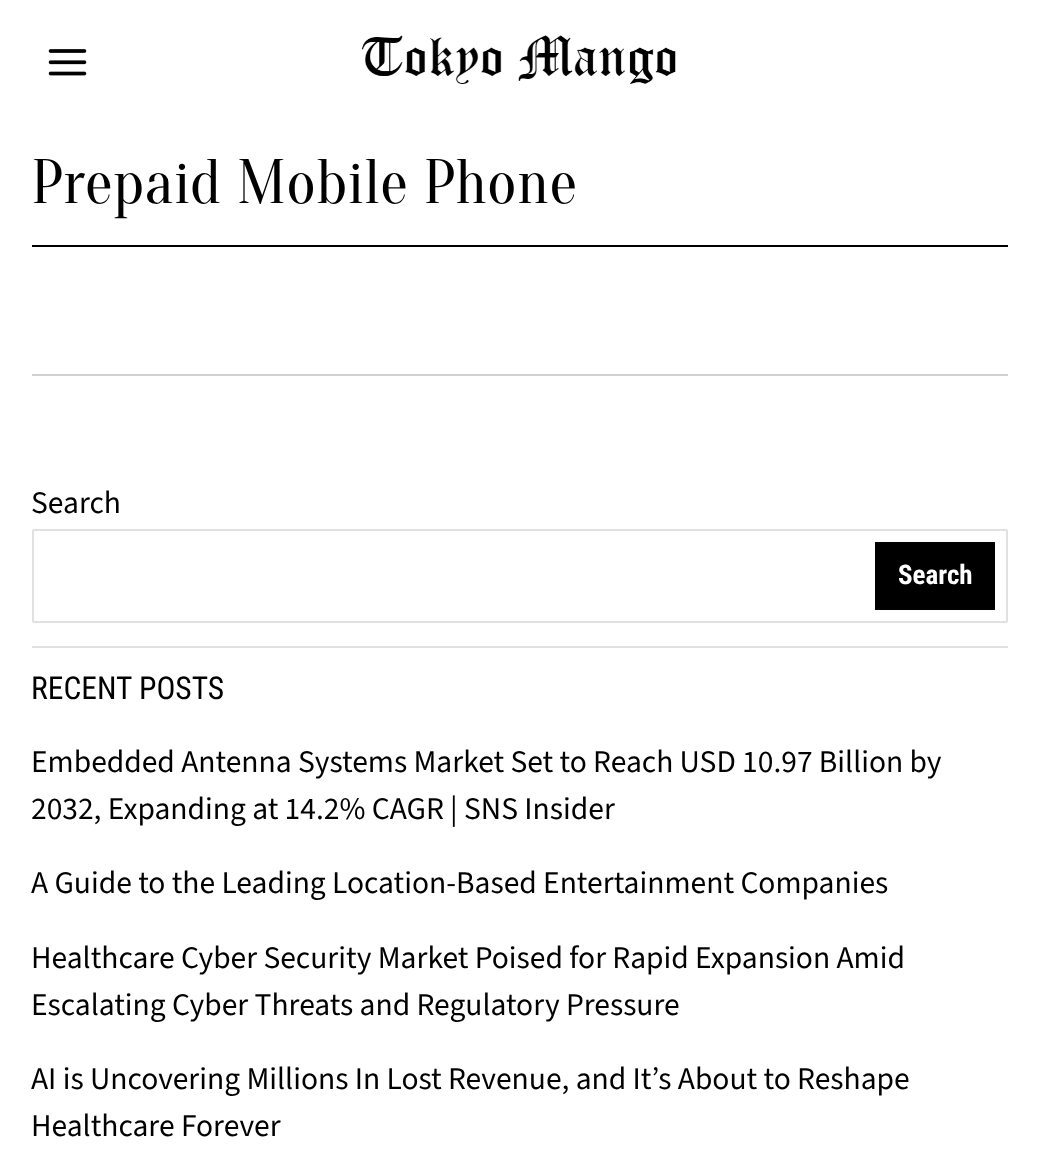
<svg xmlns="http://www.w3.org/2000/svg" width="1039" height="1164">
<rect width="100%" height="100%" fill="#fff"/>
<image x="48" y="49" width="39" height="27" href="media/1.png"/>
<image x="361" y="35" width="315" height="49" href="media/2.png"/>
<rect x="32" y="245" width="976" height="2" fill="#000"/>
<text x="31" y="203" style="font-family:Oranienbaum;font-size:63px;fill:#000">Prepaid Mobile Phone</text>
<rect x="32" y="374" width="976" height="2" fill="#d0d0d0"/>
<text x="31" y="513" style="font-family:'Source Sans 3';font-size:31.5px;fill:#000">Search</text>
<rect x="33" y="530" width="974" height="92" rx="1" fill="none" stroke="#e0e0e0" stroke-width="2"/>
<rect x="875" y="542" width="120" height="68" fill="#000"/>
<text x="898" y="584" style="font-family:Roboto Condensed;font-size:27px;font-weight:bold;fill:#fff">Search</text>
<rect x="32" y="646" width="976" height="2" fill="#e0e0e0"/>
<text x="31" y="699" style="font-family:Roboto Condensed;font-size:31.5px;fill:#000">RECENT POSTS</text>
<text x="31" y="772" style="font-family:'Source Sans 3';font-size:31.5px;fill:#000">Embedded Antenna Systems Market Set to Reach USD 10.97 Billion by</text>
<text x="31" y="819" style="font-family:'Source Sans 3';font-size:31.5px;fill:#000">2032, Expanding at 14.2% CAGR | SNS Insider</text>
<text x="31" y="893" style="font-family:'Source Sans 3';font-size:31.5px;fill:#000">A Guide to the Leading Location-Based Entertainment Companies</text>
<text x="31" y="968" style="font-family:'Source Sans 3';font-size:31.5px;fill:#000">Healthcare Cyber Security Market Poised for Rapid Expansion Amid</text>
<text x="31" y="1015" style="font-family:'Source Sans 3';font-size:31.5px;fill:#000">Escalating Cyber Threats and Regulatory Pressure</text>
<text x="31" y="1089" style="font-family:'Source Sans 3';font-size:31.5px;fill:#000">AI is Uncovering Millions In Lost Revenue, and It’s About to Reshape</text>
<text x="31" y="1136" style="font-family:'Source Sans 3';font-size:31.5px;fill:#000">Healthcare Forever</text>
</svg>
